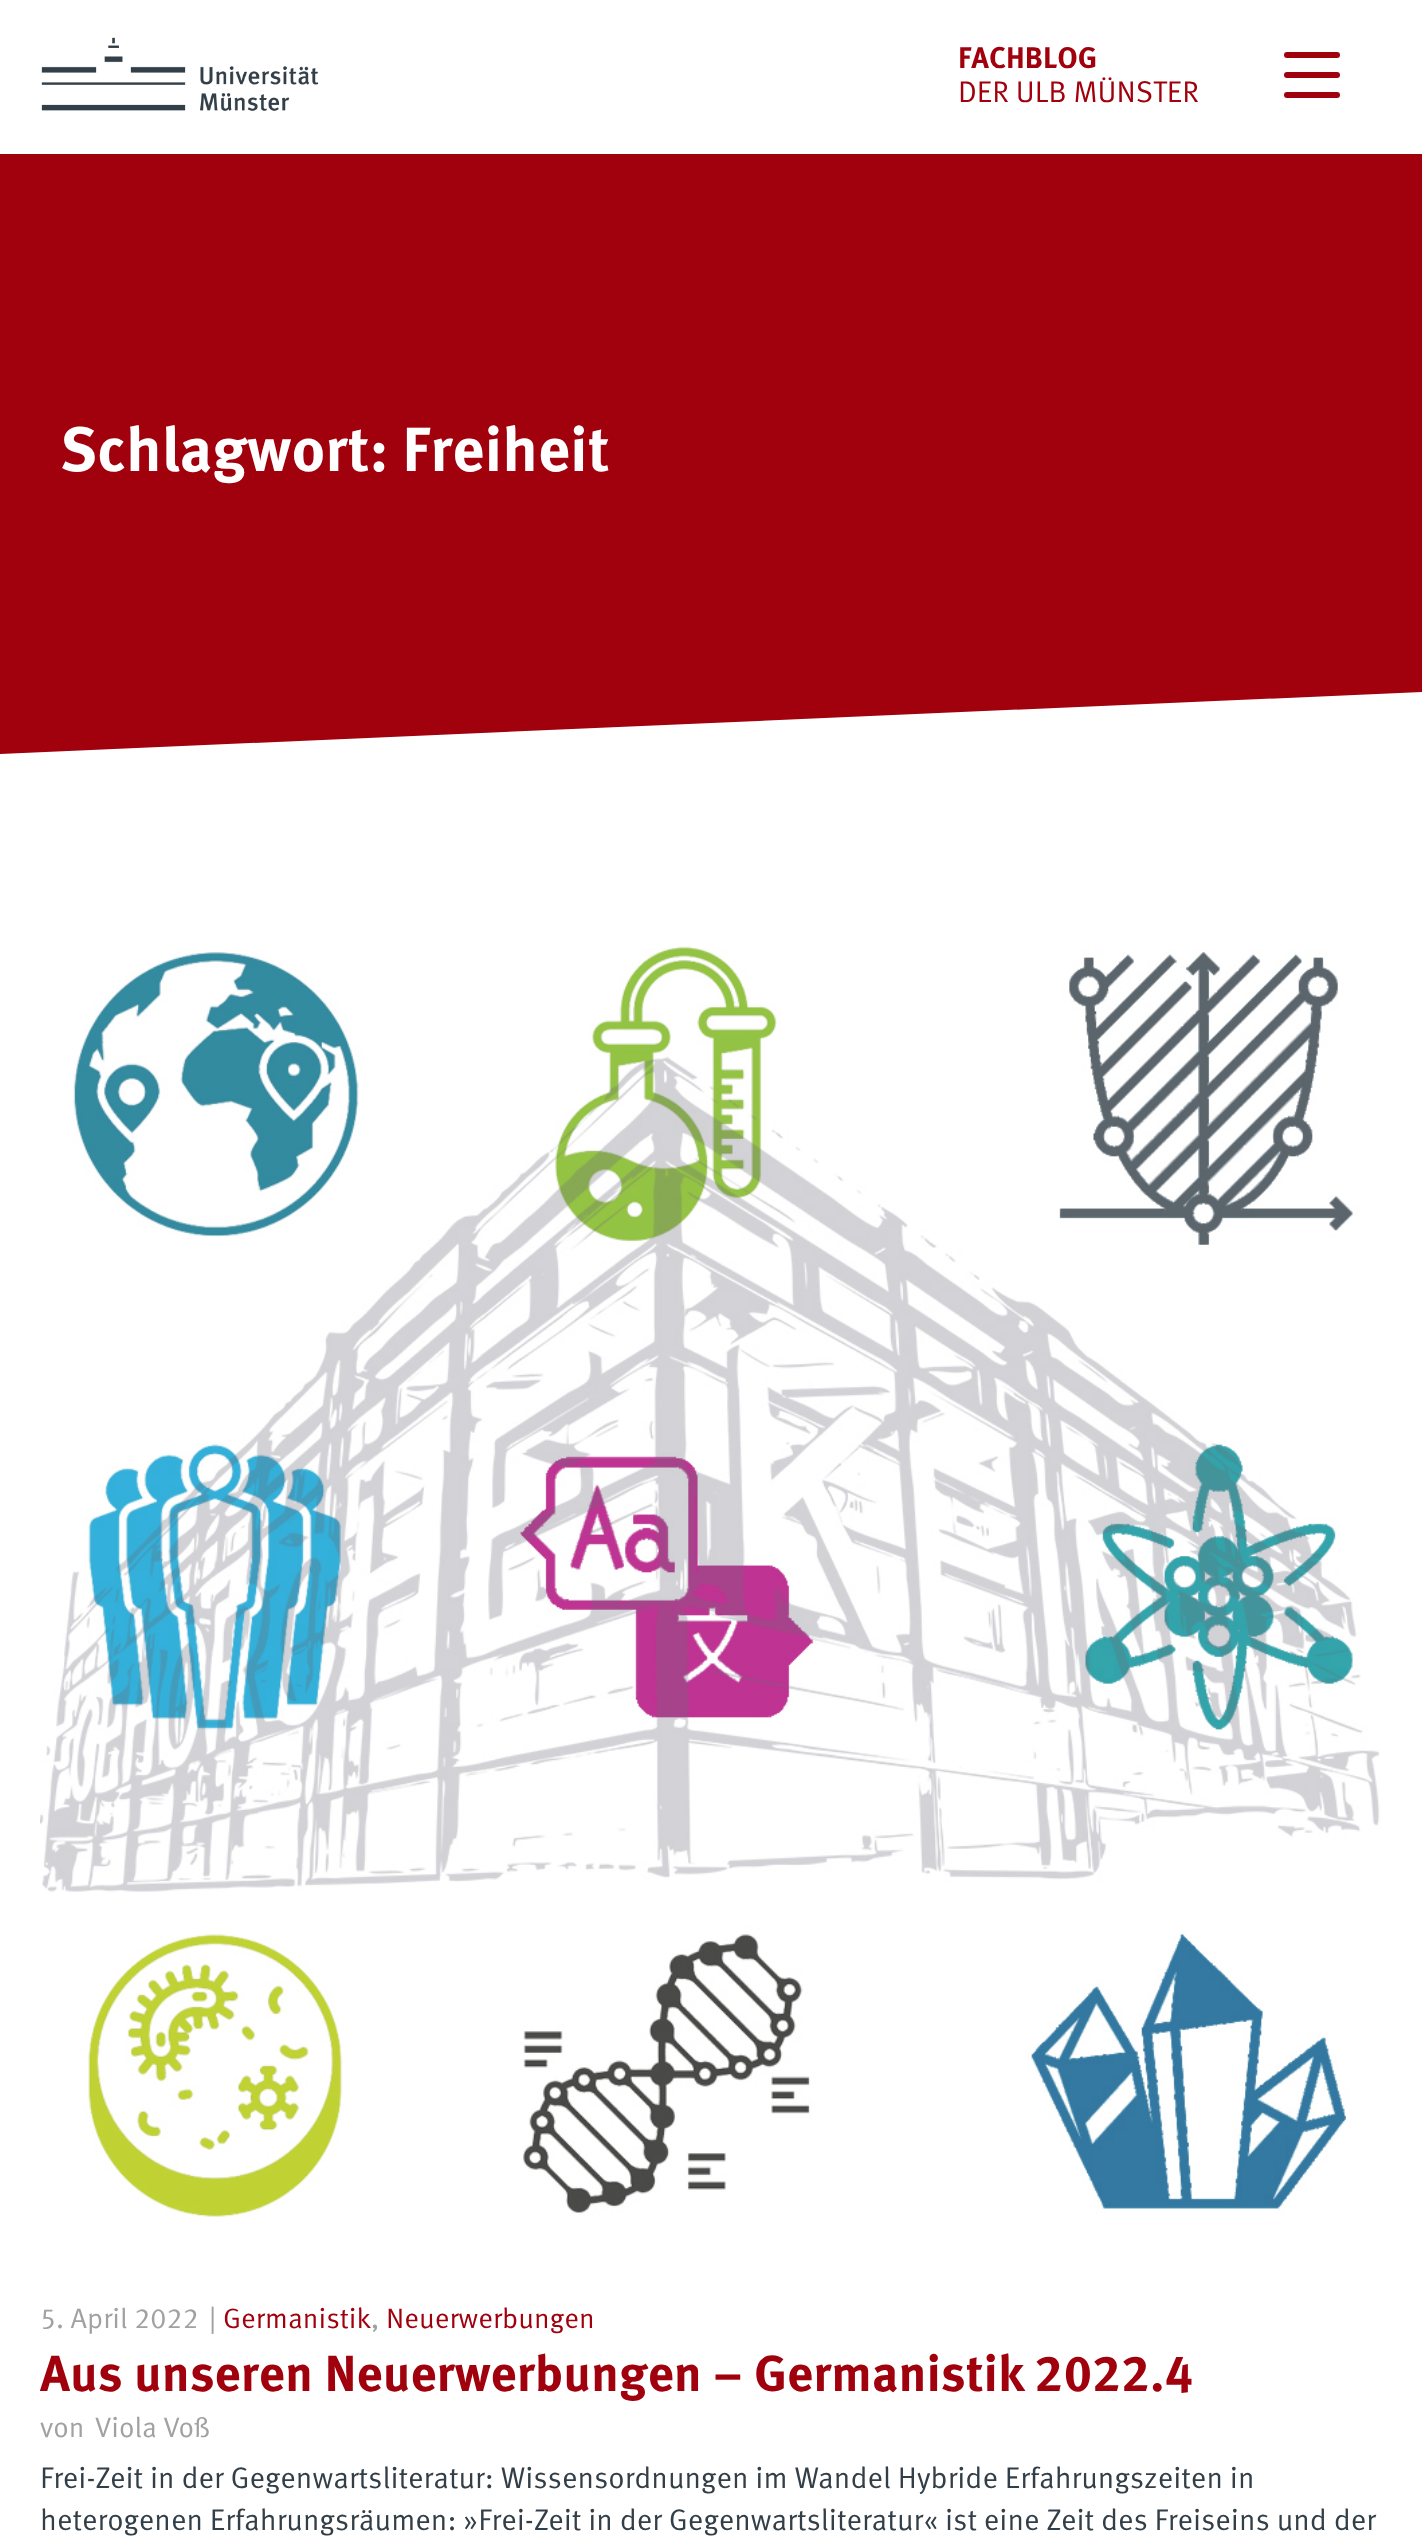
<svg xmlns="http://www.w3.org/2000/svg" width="1422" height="2544">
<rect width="100%" height="100%" fill="#fff"/>
<image x="41" y="37" width="278" height="74" href="media/1.png"/>
<text x="958" y="68" style="font-family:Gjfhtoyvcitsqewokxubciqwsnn;font-size:29.8px;font-weight:bold;fill:#a0010c">FACHBLOG</text>
<text x="958" y="102" style="font-family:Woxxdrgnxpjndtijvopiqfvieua;font-size:29.8px;fill:#a0010c">DER ULB MÜNSTER</text>
<rect x="1284" y="52" width="56" height="6" rx="3" fill="#a0010c"/>
<rect x="1284" y="72" width="56" height="6" rx="3" fill="#a0010c"/>
<rect x="1284" y="92" width="56" height="6" rx="3" fill="#a0010c"/>
<rect y="154" width="1422" height="600" fill="#a0010c"/>
<text x="60" y="471" style="font-family:Gjfhtoyvcitsqewokxubciqwsnn;font-size:62.25px;font-weight:bold;fill:#fff">Schlagwort: Freiheit</text>
<path d="M0 754l1422-62v104l-1422 62z" fill="#fff"/>
<image x="40" y="946" width="1340" height="1271" href="media/2.png"/>
<text x="40" y="2328" style="font-family:Woxxdrgnxpjndtijvopiqfvieua;font-size:28.25px;fill:#a1a1a1">5. April 2022</text>
<text x="209" y="2328" style="font-family:Woxxdrgnxpjndtijvopiqfvieua;font-size:28.25px;fill:#a1a1a1">|</text>
<text x="223" y="2328" style="font-family:Woxxdrgnxpjndtijvopiqfvieua;font-size:28.25px;fill:#a0010c">Germanistik</text>
<text x="371" y="2328" style="font-family:Woxxdrgnxpjndtijvopiqfvieua;font-size:28.25px;fill:#a1a1a1">,</text>
<text x="386" y="2328" style="font-family:Woxxdrgnxpjndtijvopiqfvieua;font-size:28.25px;fill:#a0010c">Neuerwerbungen</text>
<text x="40" y="2391" style="font-family:Gjfhtoyvcitsqewokxubciqwsnn;font-size:50.7px;font-weight:bold;fill:#a0010c">Aus unseren Neuerwerbungen – Germanistik 2022.4</text>
<text x="40" y="2437" style="font-family:Woxxdrgnxpjndtijvopiqfvieua;font-size:28.25px;fill:#a1a1a1">von</text>
<text x="95" y="2437" style="font-family:Woxxdrgnxpjndtijvopiqfvieua;font-size:28.25px;fill:#a1a1a1">Viola Voß</text>
<text x="40" y="2488" style="font-family:Woxxdrgnxpjndtijvopiqfvieua;font-size:29.8px;fill:#333f48">Frei-Zeit in der Gegenwartsliteratur: Wissensordnungen im Wandel Hybride Erfahrungszeiten in</text>
<text x="40" y="2530" style="font-family:Woxxdrgnxpjndtijvopiqfvieua;font-size:29.8px;fill:#333f48">heterogenen Erfahrungsräumen: »Frei-Zeit in der Gegenwartsliteratur« ist eine Zeit des Freiseins und der</text>
</svg>
